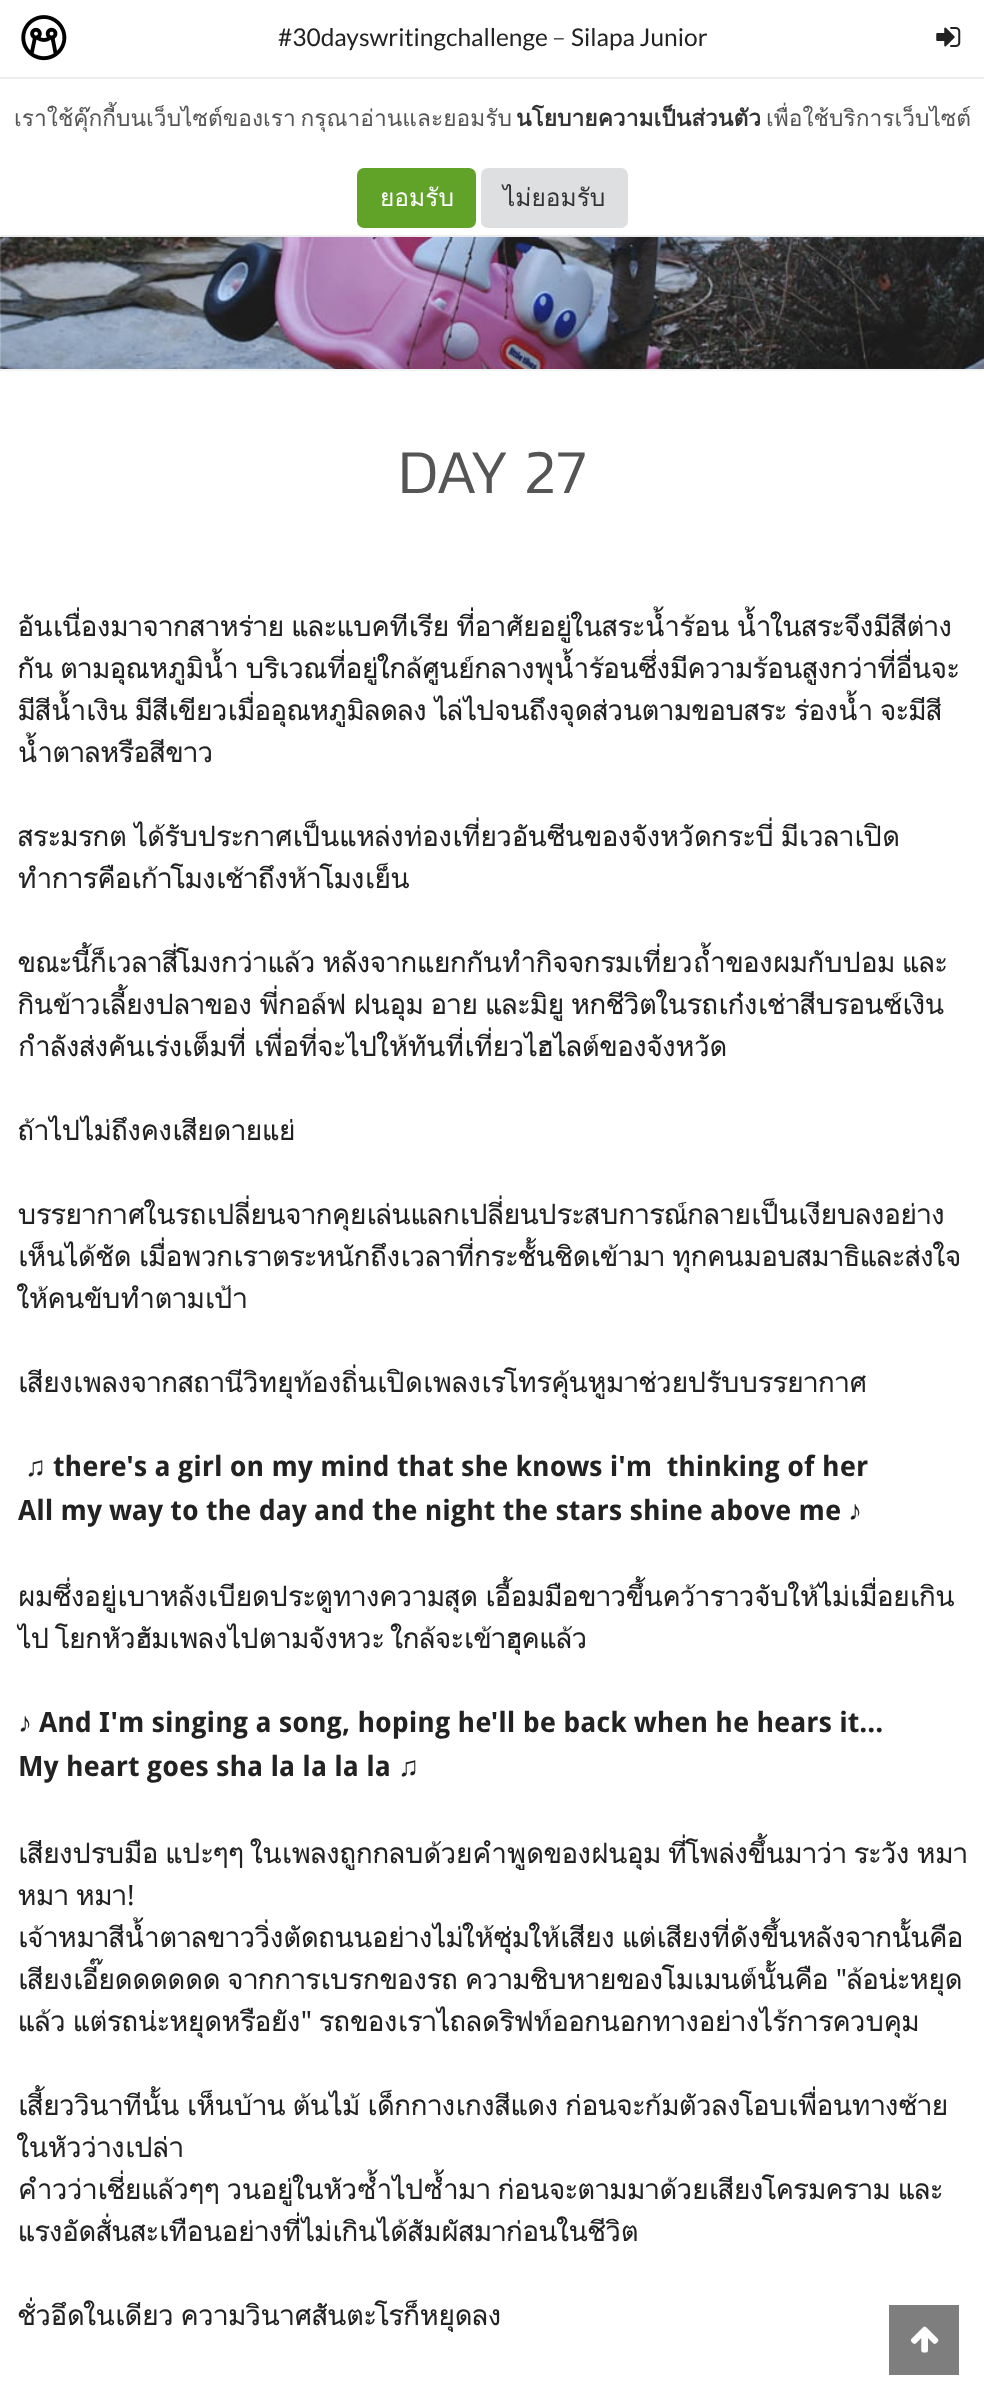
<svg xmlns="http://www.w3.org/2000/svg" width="984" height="2401">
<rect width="100%" height="100%" fill="#fff"/>
<rect y="77" width="984" height="2" fill="#eee"/>
<image x="21" y="15" width="46" height="46" href="media/1.png"/>
<image x="936" y="27" width="25" height="20" href="media/2.png"/>
<text x="278" y="46" style="font-family:Lato;font-size:24.5px;fill:#222">#30dayswritingchallenge</text>
<text x="552" y="46" style="font-family:Lato;font-size:24.5px;fill:#555">–</text>
<text x="571" y="46" style="font-family:Lato;font-size:24.5px;fill:#222">Silapa Junior</text>
<image x="0" y="237" width="984" height="132" href="media/3.png"/>
<rect y="369" width="984" height="2" fill="#f4f4f4"/>
<text x="398" y="493" style="font-family:Kanit;font-size:63px;font-weight:300;fill:#555">DAY 27</text>
<text x="18" y="636" style="font-family:Droid Sans;font-size:28px;fill:#222">อันเนื่องมาจากสาหร่าย และแบคทีเรีย ที่อาศัยอยู่ในสระน้ำร้อน น้ำในสระจึงมีสีต่าง</text>
<text x="18" y="678" style="font-family:Droid Sans;font-size:28px;fill:#222">กัน ตามอุณหภูมิน้ำ บริเวณที่อยู่ใกล้ศูนย์กลางพุน้ำร้อนซึ่งมีความร้อนสูงกว่าที่อื่นจะ</text>
<text x="18" y="720" style="font-family:Droid Sans;font-size:28px;fill:#222">มีสีน้ำเงิน มีสีเขียวเมื่ออุณหภูมิลดลง ไล่ไปจนถึงจุดส่วนตามขอบสระ ร่องน้ำ จะมีสี</text>
<text x="18" y="762" style="font-family:Droid Sans;font-size:28px;fill:#222">น้ำตาลหรือสีขาว</text>
<text x="18" y="846" style="font-family:Droid Sans;font-size:28px;fill:#222">สระมรกต ได้รับประกาศเป็นแหล่งท่องเที่ยวอันซีนของจังหวัดกระบี่ มีเวลาเปิด</text>
<text x="18" y="888" style="font-family:Droid Sans;font-size:28px;fill:#222">ทำการคือเก้าโมงเช้าถึงห้าโมงเย็น</text>
<text x="18" y="972" style="font-family:Droid Sans;font-size:28px;fill:#222">ขณะนี้ก็เวลาสี่โมงกว่าแล้ว หลังจากแยกกันทำกิจจกรมเที่ยวถ้ำของผมกับปอม และ</text>
<text x="18" y="1014" style="font-family:Droid Sans;font-size:28px;fill:#222">กินข้าวเลี้ยงปลาของ พี่กอล์ฟ ฝนอุม อาย และมิยู หกชีวิตในรถเก๋งเช่าสีบรอนซ์เงิน</text>
<text x="18" y="1056" style="font-family:Droid Sans;font-size:28px;fill:#222">กำลังส่งคันเร่งเต็มที่ เพื่อที่จะไปให้ทันที่เที่ยวไฮไลต์ของจังหวัด</text>
<text x="18" y="1140" style="font-family:Droid Sans;font-size:28px;fill:#222">ถ้าไปไม่ถึงคงเสียดายแย่</text>
<text x="18" y="1224" style="font-family:Droid Sans;font-size:28px;fill:#222">บรรยากาศในรถเปลี่ยนจากคุยเล่นแลกเปลี่ยนประสบการณ์กลายเป็นเงียบลงอย่าง</text>
<text x="18" y="1266" style="font-family:Droid Sans;font-size:28px;fill:#222">เห็นได้ชัด เมื่อพวกเราตระหนักถึงเวลาที่กระชั้นชิดเข้ามา ทุกคนมอบสมาธิและส่งใจ</text>
<text x="18" y="1308" style="font-family:Droid Sans;font-size:28px;fill:#222">ให้คนขับทำตามเป้า</text>
<text x="18" y="1392" style="font-family:Droid Sans;font-size:28px;fill:#222">เสียงเพลงจากสถานีวิทยุท้องถิ่นเปิดเพลงเรโทรคุ้นหูมาช่วยปรับบรรยากาศ</text>
<text x="25" y="1476" style="font-family:Liberation Serif;font-size:28px;font-weight:bold;fill:#222">♫</text>
<text x="53" y="1476" style="font-family:Droid Sans;font-size:28px;font-weight:bold;fill:#222" xml:space="preserve">there's a girl on my mind that she knows i'm  thinking of her</text>
<text x="18" y="1520" style="font-family:Droid Sans;font-size:28px;font-weight:bold;fill:#222">All my way to the day and the night the stars shine above me</text>
<text x="848" y="1520" style="font-family:Liberation Serif;font-size:28px;font-weight:bold;fill:#222">♪</text>
<text x="18" y="1606" style="font-family:Droid Sans;font-size:28px;fill:#222">ผมซึ่งอยู่เบาหลังเบียดประตูทางความสุด เอื้อมมือขาวขึ้นคว้าราวจับให้ไม่เมื่อยเกิน</text>
<text x="18" y="1648" style="font-family:Droid Sans;font-size:28px;fill:#222">ไป โยกหัวฮัมเพลงไปตามจังหวะ ใกล้จะเข้าฮุคแล้ว</text>
<text x="18" y="1732" style="font-family:Liberation Serif;font-size:28px;font-weight:bold;fill:#222">♪</text>
<text x="39" y="1732" style="font-family:Droid Sans;font-size:28px;font-weight:bold;fill:#222">And I'm singing a song, hoping he'll be back when he hears it...</text>
<text x="18" y="1776" style="font-family:Droid Sans;font-size:28px;font-weight:bold;fill:#222">My heart goes sha la la la la</text>
<text x="398" y="1776" style="font-family:Liberation Serif;font-size:28px;font-weight:bold;fill:#222">♫</text>
<text x="18" y="1863" style="font-family:Droid Sans;font-size:28px;fill:#222">เสียงปรบมือ แปะๆๆ ในเพลงถูกกลบด้วยคำพูดของฝนอุม ที่โพล่งขึ้นมาว่า ระวัง หมา</text>
<text x="18" y="1905" style="font-family:Droid Sans;font-size:28px;fill:#222">หมา หมา!</text>
<text x="18" y="1947" style="font-family:Droid Sans;font-size:28px;fill:#222">เจ้าหมาสีน้ำตาลขาววิ่งตัดถนนอย่างไม่ให้ซุ่มให้เสียง แต่เสียงที่ดังขึ้นหลังจากนั้นคือ</text>
<text x="18" y="1989" style="font-family:Droid Sans;font-size:28px;fill:#222">เสียงเอี๊ยดดดดดด จากการเบรกของรถ ความชิบหายของโมเมนต์นั้นคือ "ล้อน่ะหยุด</text>
<text x="18" y="2031" style="font-family:Droid Sans;font-size:28px;fill:#222">แล้ว แต่รถน่ะหยุดหรือยัง" รถของเราไถลดริฟท์ออกนอกทางอย่างไร้การควบคุม</text>
<text x="18" y="2115" style="font-family:Droid Sans;font-size:28px;fill:#222">เสี้ยววินาทีนั้น เห็นบ้าน ต้นไม้ เด็กกางเกงสีแดง ก่อนจะก้มตัวลงโอบเพื่อนทางซ้าย</text>
<text x="18" y="2157" style="font-family:Droid Sans;font-size:28px;fill:#222">ในหัวว่างเปล่า</text>
<text x="18" y="2199" style="font-family:Droid Sans;font-size:28px;fill:#222">คำวว่าเชี่ยแล้วๆๆ วนอยู่ในหัวซ้ำไปซ้ำมา ก่อนจะตามมาด้วยเสียงโครมคราม และ</text>
<text x="18" y="2241" style="font-family:Droid Sans;font-size:28px;fill:#222">แรงอัดสั่นสะเทือนอย่างที่ไม่เกินได้สัมผัสมาก่อนในชีวิต</text>
<text x="18" y="2325" style="font-family:Droid Sans;font-size:28px;fill:#222">ชั่วอึดในเดียว ความวินาศสัันตะโรก็หยุดลง</text>
<rect x="889" y="2305" width="70" height="70" fill="#7e7e7e"/>
<image x="911" y="2326" width="28" height="27" href="media/4.png"/>
<rect y="235" width="984" height="2" fill="#eee"/>
<text x="14" y="126" word-spacing="-3" style="font-family:Loma;font-size:22.75px;fill:#555">เราใช้คุ๊กกี้บนเว็บไซต์ของเรา กรุณาอ่านและยอมรับ</text>
<text x="516" y="126" style="font-family:Loma;font-size:22.75px;font-weight:bold;fill:#333">นโยบายความเป็นส่วนตัว</text>
<text x="766" y="126" style="font-family:Loma;font-size:22.75px;fill:#555">เพื่อใช้บริการเว็บไซต์</text>
<rect x="357" y="168" width="119" height="60" rx="7" fill="#61a229"/>
<text x="380" y="206" style="font-family:Loma;font-size:24.5px;fill:#fff">ยอมรับ</text>
<rect x="481" y="168" width="147" height="60" rx="7" fill="#dedfe0"/>
<text x="503" y="206" style="font-family:Loma;font-size:24.5px;fill:#333">ไม่ยอมรับ</text>
</svg>
